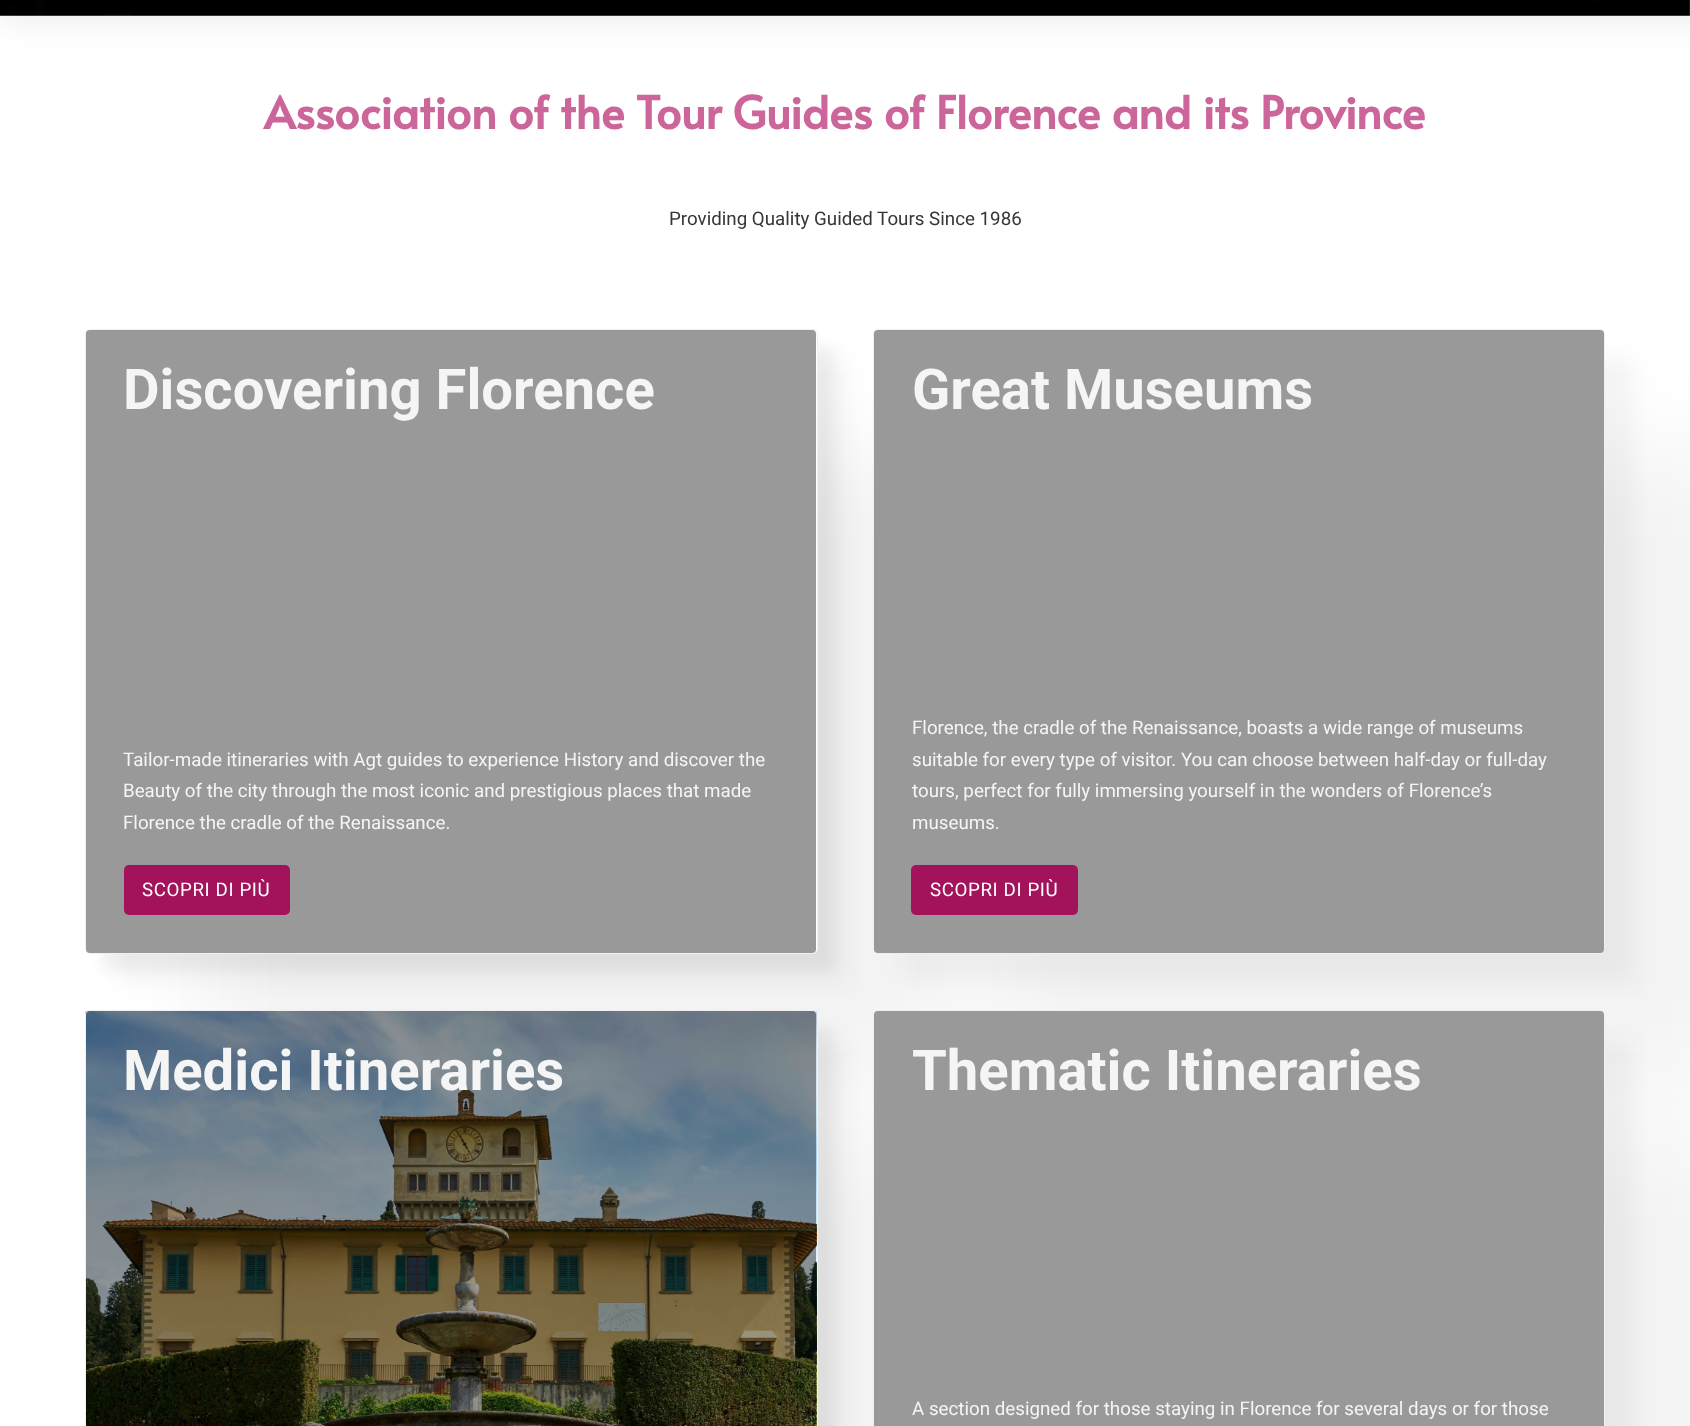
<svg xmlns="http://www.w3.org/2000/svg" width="1690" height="1426">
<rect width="100%" height="100%" fill="#fff"/>
<rect width="1690" height="16" fill="#e6e7e8"/>
<image x="0" y="0" width="1690" height="16" href="media/1.png"/>
<rect x="-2" y="-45" width="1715" height="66" fill="#00000012" filter="blur(15px)"/>
<text x="264" y="129" style="font-family:Alata;font-size:45px;font-weight:bold;fill:#cc6599">Association of the Tour Guides of Florence and its Province</text>
<text x="669" y="225" style="font-family:Roboto;font-size:18.75px;fill:#363636">Providing Quality Guided Tours Since 1986</text>
<rect x="210" y="454" width="733" height="625" rx="5" fill="#0000000d" filter="blur(50px)"/>
<rect x="113" y="356" width="732" height="625" rx="5" fill="#0000000a" filter="blur(11px)"/>
<rect x="101" y="345" width="733" height="625" rx="5" fill="#0000000a" filter="blur(6px)"/>
<rect x="85.5" y="329.5" width="732" height="624" rx="4.5" fill="#fff" stroke="#f0f0f0"/>
<rect x="86" y="330" width="730" height="623" rx="4" fill="#00000066"/>
<text x="123" y="409" style="font-family:Roboto;font-size:56.25px;font-weight:bold;fill:#f5f5f5">Discovering Florence</text>
<text x="123" y="766" style="font-family:Roboto;font-size:18.75px;fill:#f5f5f5">Tailor-made itineraries with Agt guides to experience History and discover the</text>
<text x="123" y="797" style="font-family:Roboto;font-size:18.75px;fill:#f5f5f5">Beauty of the city through the most iconic and prestigious places that made</text>
<text x="123" y="829" style="font-family:Roboto;font-size:18.75px;fill:#f5f5f5">Florence the cradle of the Renaissance.</text>
<rect x="124" y="865" width="166" height="50" rx="5" fill="#a3135c"/>
<text x="142" y="896" style="font-family:Roboto;font-size:18.75px;letter-spacing:0.6px;fill:#fff">SCOPRI DI PIÙ</text>
<rect x="998" y="454" width="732" height="625" rx="5" fill="#0000000d" filter="blur(50px)"/>
<rect x="900" y="356" width="733" height="625" rx="5" fill="#0000000a" filter="blur(11px)"/>
<rect x="873.5" y="329.5" width="731" height="624" rx="4.5" fill="#fff" stroke="#f0f0f0"/>
<rect x="874" y="330" width="730" height="623" rx="4" fill="#00000066"/>
<text x="912" y="409" style="font-family:Roboto;font-size:56.25px;font-weight:bold;fill:#f5f5f5">Great Museums</text>
<text x="912" y="734" style="font-family:Roboto;font-size:18.75px;fill:#f5f5f5">Florence, the cradle of the Renaissance, boasts a wide range of museums</text>
<text x="912" y="766" style="font-family:Roboto;font-size:18.75px;fill:#f5f5f5">suitable for every type of visitor. You can choose between half-day or full-day</text>
<text x="912" y="797" style="font-family:Roboto;font-size:18.75px;fill:#f5f5f5">tours, perfect for fully immersing yourself in the wonders of Florence’s</text>
<text x="912" y="829" style="font-family:Roboto;font-size:18.75px;fill:#f5f5f5">museums.</text>
<rect x="911" y="865" width="167" height="50" rx="5" fill="#a3135c"/>
<text x="930" y="896" style="font-family:Roboto;font-size:18.75px;letter-spacing:0.6px;fill:#fff">SCOPRI DI PIÙ</text>
<rect x="210" y="1135" width="733" height="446" rx="5" fill="#0000000d" filter="blur(50px)"/>
<rect x="113" y="1038" width="732" height="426" rx="5" fill="#0000000a" filter="blur(11px)"/>
<rect x="101" y="1026" width="733" height="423" rx="5" fill="#0000000a" filter="blur(6px)"/>
<image x="85" y="1010" width="733" height="416" href="media/2.png"/>
<rect x="85.5" y="1010.5" width="732" height="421" rx="4.5" fill="none" stroke="#f0f0f0"/>
<rect x="86" y="1011" width="730" height="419" rx="4" fill="#00000066"/>
<text x="123" y="1090" style="font-family:Roboto;font-size:56.25px;font-weight:bold;fill:#f5f5f5">Medici Itineraries</text>
<rect x="998" y="1135" width="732" height="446" rx="5" fill="#0000000d" filter="blur(50px)"/>
<rect x="900" y="1038" width="733" height="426" rx="5" fill="#0000000a" filter="blur(11px)"/>
<rect x="873.5" y="1010.5" width="731" height="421" rx="4.5" fill="#fff" stroke="#f0f0f0"/>
<rect x="874" y="1011" width="730" height="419" rx="4" fill="#00000066"/>
<text x="912" y="1090" style="font-family:Roboto;font-size:56.25px;font-weight:bold;fill:#f5f5f5">Thematic Itineraries</text>
<text x="912" y="1415" style="font-family:Roboto;font-size:18.75px;fill:#f5f5f5">A section designed for those staying in Florence for several days or for those</text>
</svg>
